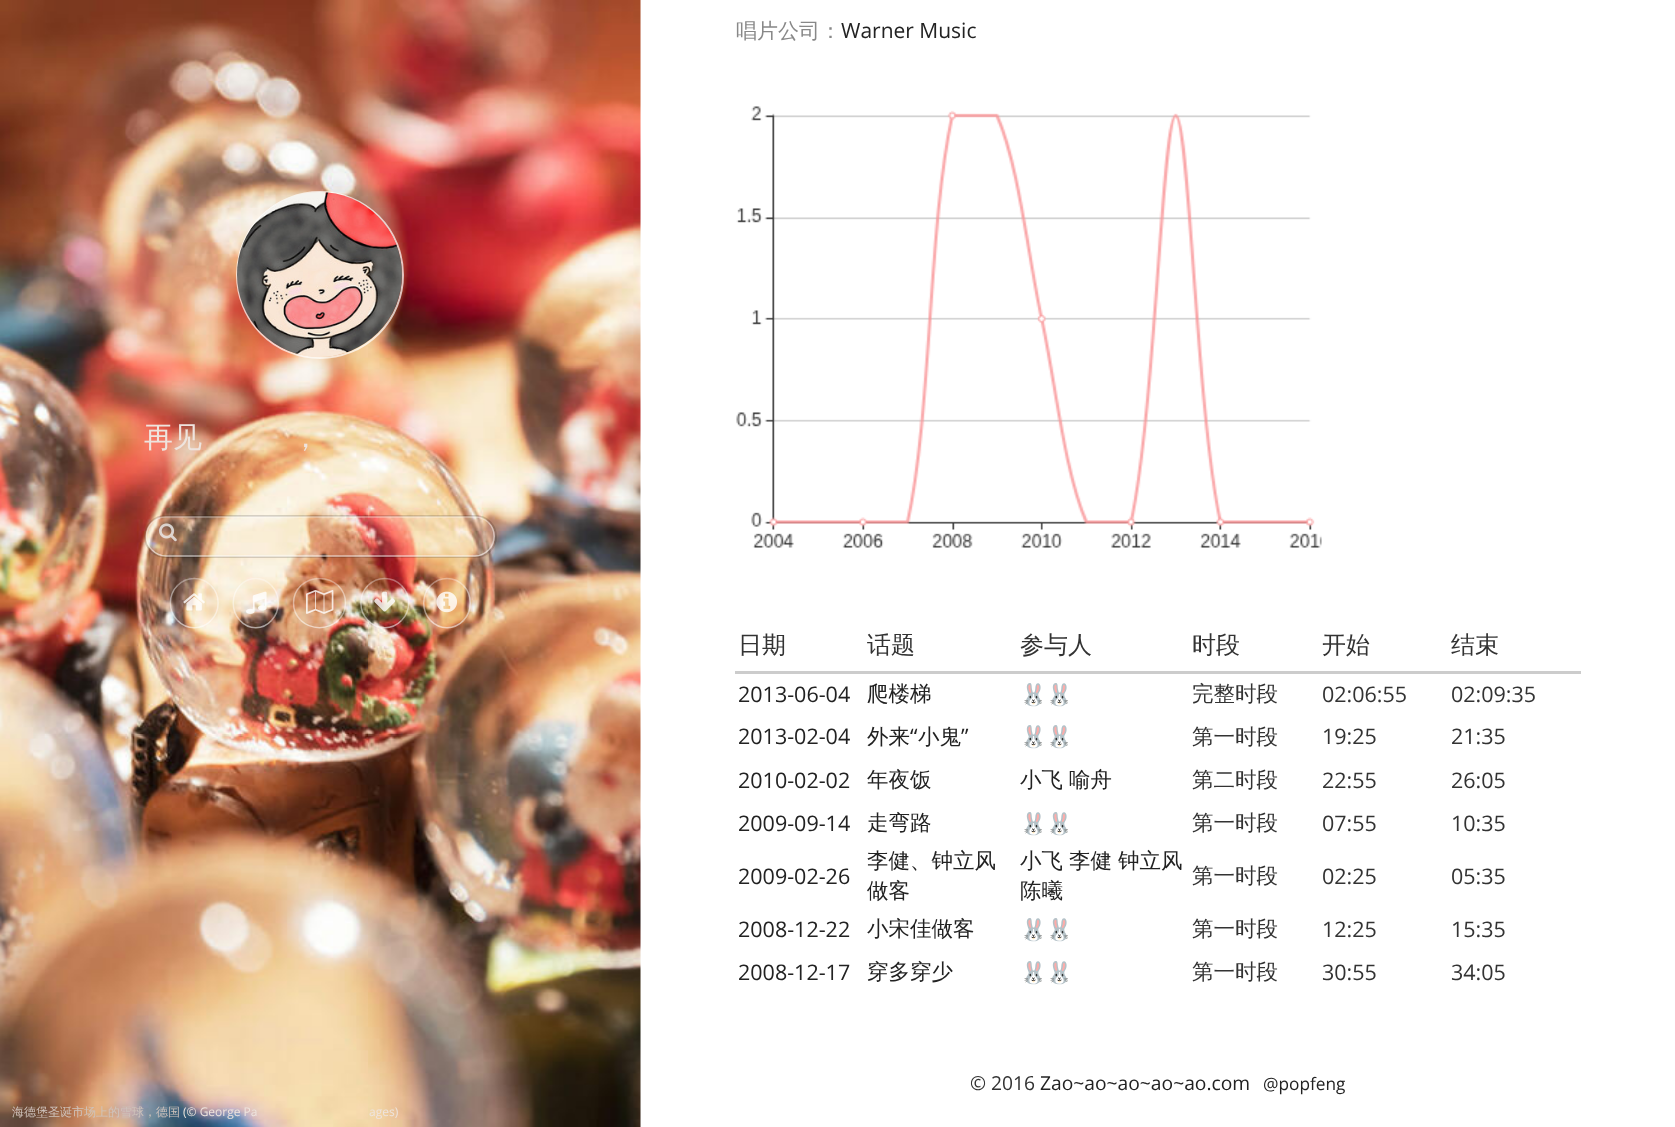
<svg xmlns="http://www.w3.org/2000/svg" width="1675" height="1127">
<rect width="100%" height="100%" fill="#fff"/>
<image x="0" y="0" width="641" height="1127" href="media/1.png"/>
<circle cx="320" cy="275" r="83" fill="none" stroke="#ffffffb3" stroke-width="2"/>
<image x="237" y="192" width="165" height="165" href="media/2.png"/>
<text x="144" y="447" style="font-family:WenQuanYi Zen Hei;font-size:29px;font-weight:500;fill:#eee4de">再见</text>
<text x="291" y="447" style="font-family:WenQuanYi Zen Hei;font-size:29px;font-weight:500;fill:#eee4de">，</text>
<rect x="145" y="516" width="351" height="41" rx="20.5" fill="none" stroke="#00000026" stroke-width="2"/>
<rect x="146" y="516" width="349" height="41" rx="20.5" fill="#ffffff1a"/>
<path d="M152 522.5c3.5-3.5 8.5-5.5 14-5.5h309c5 0 10 2 13.5 5.5" fill="none" stroke="#ffffff59" stroke-width="1.5"/>
<path d="M488.5 522.5c7.5 7.5 7.5 20 0 27.5" fill="none" stroke="#ffffff73" stroke-width="1.5"/>
<path d="M488.5 550c-3.5 3.5-8.5 6-13.5 6h-309c-5.5 0-10.5-2.5-14-6" fill="none" stroke="#ffffff8c" stroke-width="1.5"/>
<path d="M152 550c-7.5-7.5-7.5-20 0-27.5" fill="none" stroke="#ffffff73" stroke-width="1.5"/>
<image x="159" y="523" width="18" height="19" href="media/3.png"/>
<path d="M177.5 585.5c9-9.5 24.5-9.5 33.5 0" fill="none" stroke="#ffffff59" stroke-width="1.5"/>
<path d="M211 585.5c9.5 9.5 9.5 25.5 0 35" fill="none" stroke="#ffffff73" stroke-width="1.5"/>
<path d="M211 620.5c-9 9.5-24.5 9.5-33.5 0" fill="none" stroke="#ffffff8c" stroke-width="1.5"/>
<path d="M177.5 620.5c-9.5-9.5-9.5-25.5 0-35" fill="none" stroke="#ffffff73" stroke-width="1.5"/>
<image x="183" y="593" width="22" height="18" href="media/4.png"/>
<path d="M240 585.5c8.5-9.5 23-9.5 31.5 0" fill="none" stroke="#ffffff59" stroke-width="1.5"/>
<path d="M271.5 585.5c9 9.5 9 25.5 0 35" fill="none" stroke="#ffffff73" stroke-width="1.5"/>
<path d="M271.5 620.5c-8.5 9.5-23 9.5-31.5 0" fill="none" stroke="#ffffff8c" stroke-width="1.5"/>
<path d="M240 620.5c-9-9.5-9-25.5 0-35" fill="none" stroke="#ffffff73" stroke-width="1.5"/>
<image x="246" y="591" width="21" height="23" href="media/5.png"/>
<path d="M301 585.5c10-9.5 27-9.5 37 0" fill="none" stroke="#ffffff59" stroke-width="1.5"/>
<path d="M338 585.5c10 9.5 10 25.5 0 35" fill="none" stroke="#ffffff73" stroke-width="1.5"/>
<path d="M338 620.5c-10 9.5-27 9.5-37 0" fill="none" stroke="#ffffff8c" stroke-width="1.5"/>
<path d="M301 620.5c-10-9.5-10-25.5 0-35" fill="none" stroke="#ffffff73" stroke-width="1.5"/>
<image x="306" y="590" width="28" height="24" href="media/6.png"/>
<path d="M368 585.5c9-9.5 24.5-9.5 33.5 0" fill="none" stroke="#ffffff59" stroke-width="1.5"/>
<path d="M401.5 585.5c9.5 9.5 9.5 25.5 0 35" fill="none" stroke="#ffffff73" stroke-width="1.5"/>
<path d="M401.5 620.5c-9 9.5-24.5 9.5-33.5 0" fill="none" stroke="#ffffff8c" stroke-width="1.5"/>
<path d="M368 620.5c-9.5-9.5-9.5-25.5 0-35" fill="none" stroke="#ffffff73" stroke-width="1.5"/>
<image x="374" y="591" width="21" height="21" href="media/7.png"/>
<path d="M430.5 585.5c9-9.5 24-9.5 33 0" fill="none" stroke="#ffffff59" stroke-width="1.5"/>
<path d="M463.5 585.5c9 9.5 9 25.5 0 35" fill="none" stroke="#ffffff73" stroke-width="1.5"/>
<path d="M463.5 620.5c-9 9.5-24 9.5-33 0" fill="none" stroke="#ffffff8c" stroke-width="1.5"/>
<path d="M430.5 620.5c-9-9.5-9-25.5 0-35" fill="none" stroke="#ffffff73" stroke-width="1.5"/>
<image x="436" y="591" width="22" height="22" href="media/8.png"/>
<text x="12" y="1116" style="font-family:WenQuanYi Zen Hei;font-size:12px;font-weight:500;fill:#cfc3bc">海德堡圣诞市场上的雪球，德国</text>
<text x="183" y="1116" style="font-family:Open Sans;font-size:12px;fill:#eee4de">(© George Pa</text>
<text x="369" y="1116" style="font-family:Open Sans;font-size:12px;fill:#eee4de">ages)</text>
<text x="736" y="38" style="font-family:WenQuanYi Zen Hei;font-size:21px;font-weight:500;fill:#888">唱片公司：</text>
<text x="841" y="38" style="font-family:Open Sans;font-size:21px;fill:#222">Warner Music</text>
<image x="736" y="106" width="586" height="442" href="media/9.png"/>
<text x="738" y="653" style="font-family:WenQuanYi Zen Hei;font-size:24px;font-weight:500;fill:#333">日期</text>
<text x="867" y="653" style="font-family:WenQuanYi Zen Hei;font-size:24px;font-weight:500;fill:#333">话题</text>
<text x="1020" y="653" style="font-family:WenQuanYi Zen Hei;font-size:24px;font-weight:500;fill:#333">参与人</text>
<text x="1192" y="653" style="font-family:WenQuanYi Zen Hei;font-size:24px;font-weight:500;fill:#333">时段</text>
<text x="1322" y="653" style="font-family:WenQuanYi Zen Hei;font-size:24px;font-weight:500;fill:#333">开始</text>
<rect x="735" y="671" width="846" height="3" fill="#ccc"/>
<text x="1451" y="653" style="font-family:WenQuanYi Zen Hei;font-size:24px;font-weight:500;fill:#333">结束</text>
<text x="738" y="702" style="font-family:Open Sans;font-size:21.5px;fill:#222">2013-06-04</text>
<text x="867" y="701" style="font-family:WenQuanYi Zen Hei;font-size:21.5px;font-weight:500;fill:#222">爬楼梯</text>
<text x="1020" y="702" style="font-family:Noto Color Emoji;font-size:21.5px;fill:#333">🐰🐰</text>
<text x="1192" y="701" style="font-family:WenQuanYi Zen Hei;font-size:21.5px;font-weight:500;fill:#333">完整时段</text>
<text x="1322" y="702" style="font-family:Open Sans;font-size:21.5px;fill:#333">02:06:55</text>
<text x="1451" y="702" style="font-family:Open Sans;font-size:21.5px;fill:#333">02:09:35</text>
<text x="738" y="744" style="font-family:Open Sans;font-size:21.5px;fill:#222">2013-02-04</text>
<text x="867" y="744" style="font-family:WenQuanYi Zen Hei;font-size:21.5px;font-weight:500;fill:#222">外来</text>
<text x="910" y="744" style="font-family:Open Sans;font-size:21.5px;fill:#222">“</text>
<text x="918" y="744" style="font-family:WenQuanYi Zen Hei;font-size:21.5px;font-weight:500;fill:#222">小鬼</text>
<text x="961" y="744" style="font-family:Open Sans;font-size:21.5px;fill:#222">”</text>
<text x="1020" y="744" style="font-family:Noto Color Emoji;font-size:21.5px;fill:#333">🐰🐰</text>
<text x="1192" y="744" style="font-family:WenQuanYi Zen Hei;font-size:21.5px;font-weight:500;fill:#333">第一时段</text>
<text x="1322" y="744" style="font-family:Open Sans;font-size:21.5px;fill:#333">19:25</text>
<text x="1451" y="744" style="font-family:Open Sans;font-size:21.5px;fill:#333">21:35</text>
<text x="738" y="788" style="font-family:Open Sans;font-size:21.5px;fill:#222">2010-02-02</text>
<text x="867" y="787" style="font-family:WenQuanYi Zen Hei;font-size:21.5px;font-weight:500;fill:#222">年夜饭</text>
<text x="1020" y="787" style="font-family:WenQuanYi Zen Hei;font-size:21.5px;font-weight:500;fill:#222">小飞</text>
<text x="1069" y="787" style="font-family:WenQuanYi Zen Hei;font-size:21.5px;font-weight:500;fill:#222">喻舟</text>
<text x="1192" y="787" style="font-family:WenQuanYi Zen Hei;font-size:21.5px;font-weight:500;fill:#333">第二时段</text>
<text x="1322" y="788" style="font-family:Open Sans;font-size:21.5px;fill:#333">22:55</text>
<text x="1451" y="788" style="font-family:Open Sans;font-size:21.5px;fill:#333">26:05</text>
<text x="738" y="831" style="font-family:Open Sans;font-size:21.5px;fill:#222">2009-09-14</text>
<text x="867" y="830" style="font-family:WenQuanYi Zen Hei;font-size:21.5px;font-weight:500;fill:#222">走弯路</text>
<text x="1020" y="831" style="font-family:Noto Color Emoji;font-size:21.5px;fill:#333">🐰🐰</text>
<text x="1192" y="830" style="font-family:WenQuanYi Zen Hei;font-size:21.5px;font-weight:500;fill:#333">第一时段</text>
<text x="1322" y="831" style="font-family:Open Sans;font-size:21.5px;fill:#333">07:55</text>
<text x="1451" y="831" style="font-family:Open Sans;font-size:21.5px;fill:#333">10:35</text>
<text x="738" y="884" style="font-family:Open Sans;font-size:21.5px;fill:#222">2009-02-26</text>
<text x="867" y="868" style="font-family:WenQuanYi Zen Hei;font-size:21.5px;font-weight:500;fill:#222">李健、钟立风</text>
<text x="867" y="898" style="font-family:WenQuanYi Zen Hei;font-size:21.5px;font-weight:500;fill:#222">做客</text>
<text x="1020" y="868" style="font-family:WenQuanYi Zen Hei;font-size:21.5px;font-weight:500;fill:#222">小飞</text>
<text x="1069" y="868" style="font-family:WenQuanYi Zen Hei;font-size:21.5px;font-weight:500;fill:#222">李健</text>
<text x="1118" y="868" style="font-family:WenQuanYi Zen Hei;font-size:21.5px;font-weight:500;fill:#222">钟立风</text>
<text x="1020" y="898" style="font-family:WenQuanYi Zen Hei;font-size:21.5px;font-weight:500;fill:#222">陈曦</text>
<text x="1192" y="883" style="font-family:WenQuanYi Zen Hei;font-size:21.5px;font-weight:500;fill:#333">第一时段</text>
<text x="1322" y="884" style="font-family:Open Sans;font-size:21.5px;fill:#333">02:25</text>
<text x="1451" y="884" style="font-family:Open Sans;font-size:21.5px;fill:#333">05:35</text>
<text x="738" y="937" style="font-family:Open Sans;font-size:21.5px;fill:#222">2008-12-22</text>
<text x="867" y="936" style="font-family:WenQuanYi Zen Hei;font-size:21.5px;font-weight:500;fill:#222">小宋佳做客</text>
<text x="1020" y="937" style="font-family:Noto Color Emoji;font-size:21.5px;fill:#333">🐰🐰</text>
<text x="1192" y="936" style="font-family:WenQuanYi Zen Hei;font-size:21.5px;font-weight:500;fill:#333">第一时段</text>
<text x="1322" y="937" style="font-family:Open Sans;font-size:21.5px;fill:#333">12:25</text>
<text x="1451" y="937" style="font-family:Open Sans;font-size:21.5px;fill:#333">15:35</text>
<text x="738" y="980" style="font-family:Open Sans;font-size:21.5px;fill:#222">2008-12-17</text>
<text x="867" y="979" style="font-family:WenQuanYi Zen Hei;font-size:21.5px;font-weight:500;fill:#222">穿多穿少</text>
<text x="1020" y="980" style="font-family:Noto Color Emoji;font-size:21.5px;fill:#333">🐰🐰</text>
<text x="1192" y="979" style="font-family:WenQuanYi Zen Hei;font-size:21.5px;font-weight:500;fill:#333">第一时段</text>
<text x="1322" y="980" style="font-family:Open Sans;font-size:21.5px;fill:#333">30:55</text>
<text x="1451" y="980" style="font-family:Open Sans;font-size:21.5px;fill:#333">34:05</text>
<text x="970" y="1090" style="font-family:Open Sans;font-size:19.25px;fill:#333">© 2016</text>
<text x="1040" y="1090" style="font-family:Open Sans;font-size:19.25px;fill:#222">Zao~ao~ao~ao~ao.com</text>
<text x="1263" y="1090" style="font-family:Open Sans;font-size:17.25px;fill:#222">@popfeng</text>
</svg>
